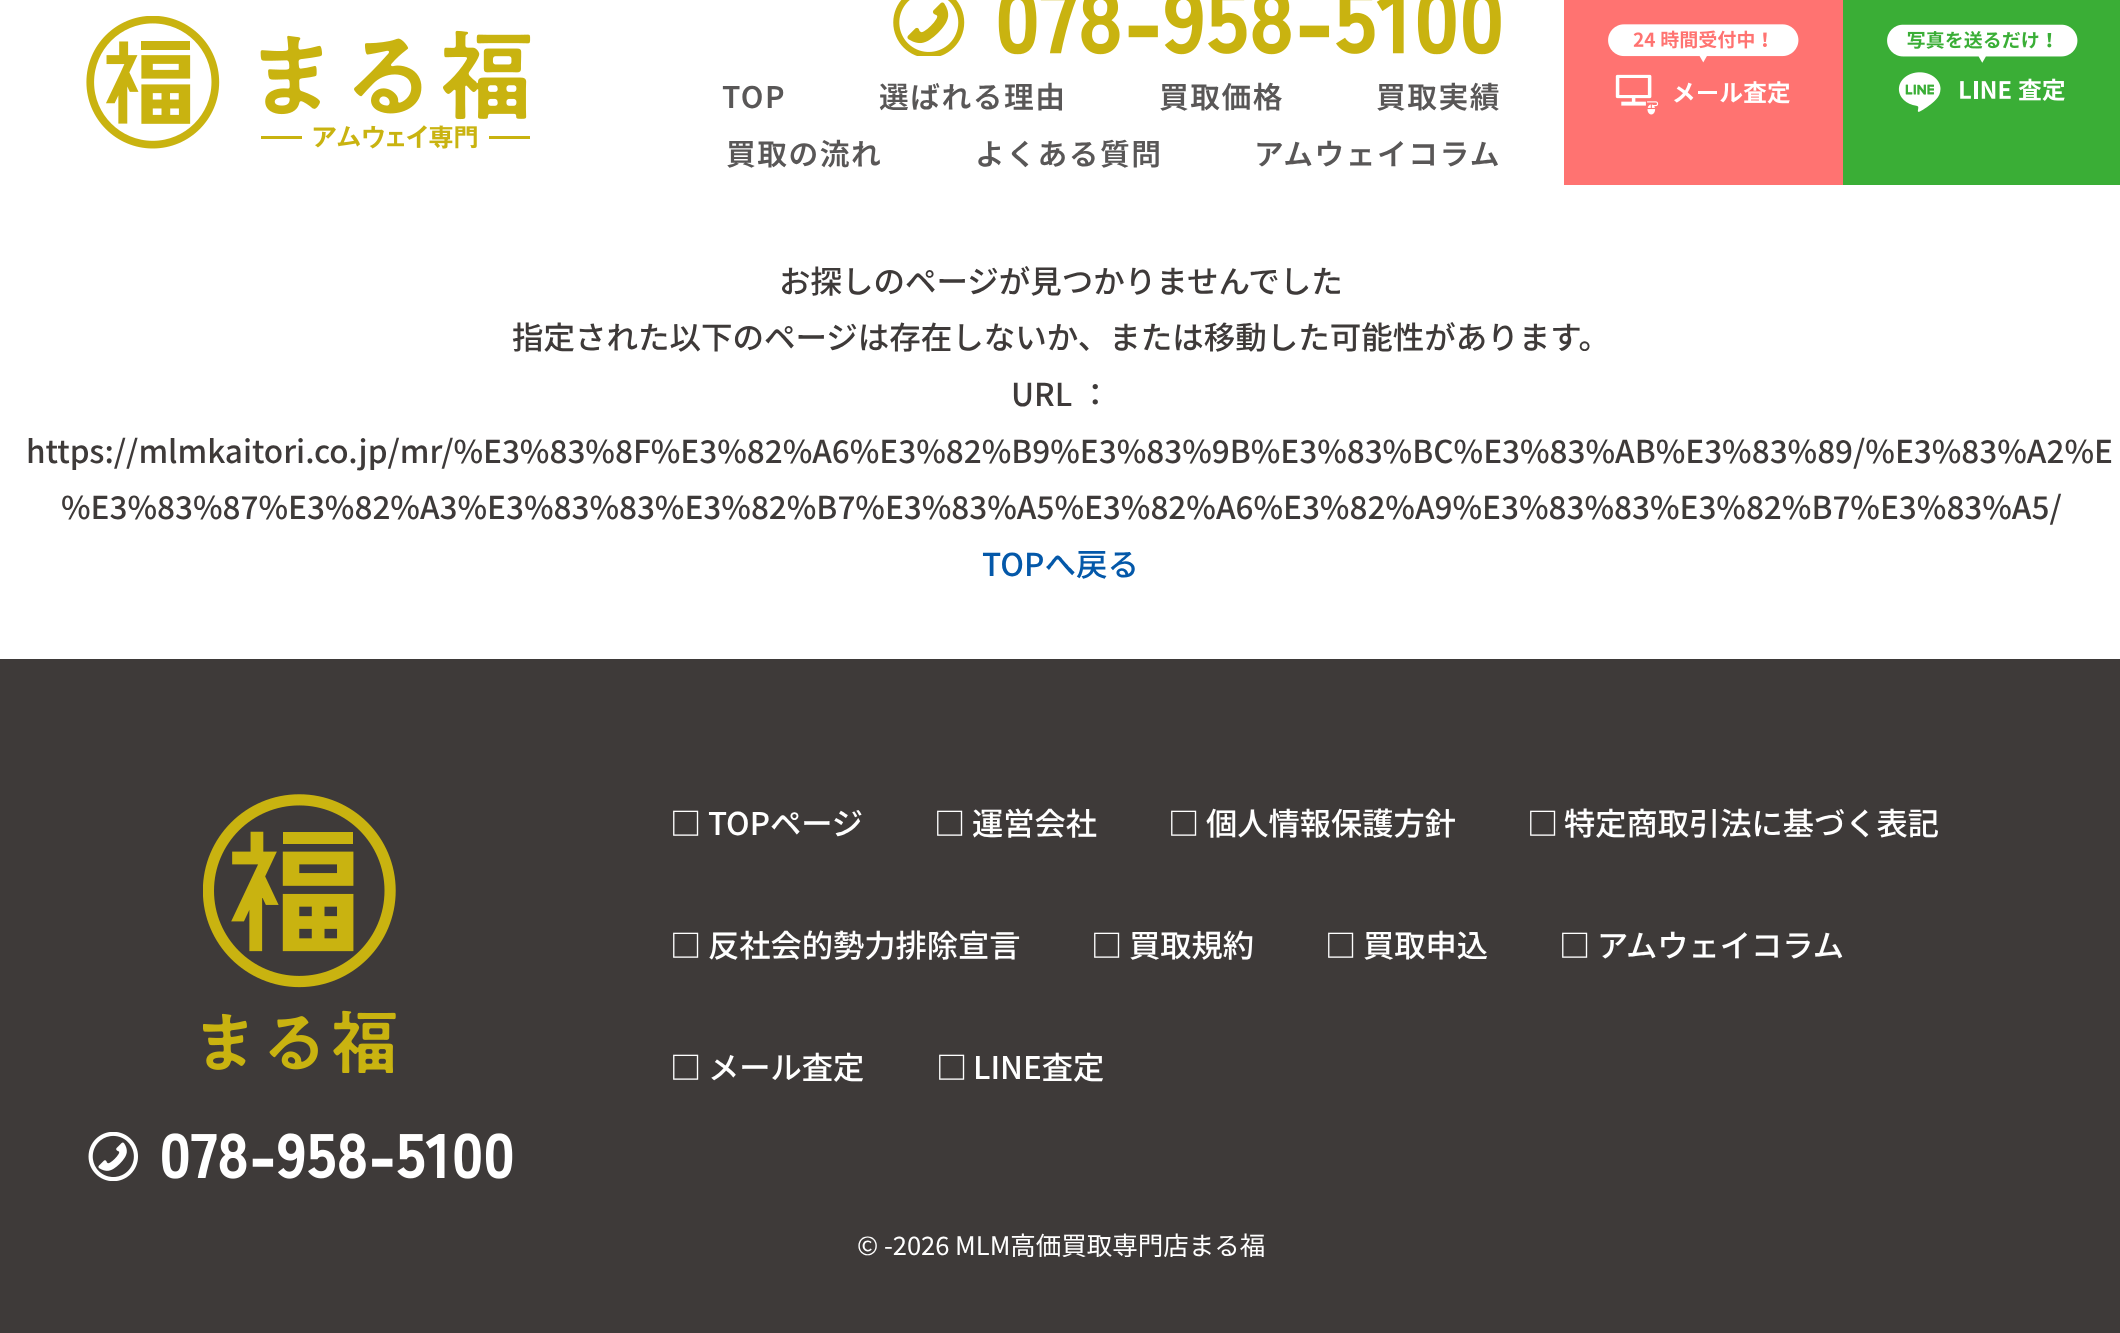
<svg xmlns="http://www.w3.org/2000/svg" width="2120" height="1333">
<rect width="100%" height="100%" fill="#fff"/>
<image x="86" y="16" width="445" height="133" href="media/1.png"/>
<image x="893" y="0" width="608" height="56" href="media/2.png"/>
<text x="722" y="108" style="font-family:Noto Sans JP;font-size:29.75px;font-weight:600;letter-spacing:1.5px;fill:#595757">TOP</text>
<text x="879" y="108" style="font-family:Noto Sans JP;font-size:29.75px;font-weight:600;letter-spacing:1.5px;fill:#595757">選ばれる理由</text>
<text x="1159" y="108" style="font-family:Noto Sans JP;font-size:29.75px;font-weight:600;letter-spacing:1.5px;fill:#595757">買取価格</text>
<text x="1376" y="108" style="font-family:Noto Sans JP;font-size:29.75px;font-weight:600;letter-spacing:1.5px;fill:#595757">買取実績</text>
<text x="726" y="165" style="font-family:Noto Sans JP;font-size:29.75px;font-weight:600;letter-spacing:1.5px;fill:#595757">買取の流れ</text>
<text x="975" y="165" style="font-family:Noto Sans JP;font-size:29.75px;font-weight:600;letter-spacing:1.5px;fill:#595757">よくある質問</text>
<text x="1254" y="165" style="font-family:Noto Sans JP;font-size:29.75px;font-weight:600;letter-spacing:1.5px;fill:#595757">アムウェイコラム</text>
<rect x="1564" width="279" height="185" fill="#ff7371"/>
<image x="1608" y="24" width="191" height="91" href="media/3.png"/>
<rect x="1843" width="277" height="185" fill="#3aae36"/>
<image x="1887" y="24" width="191" height="88" href="media/4.png"/>
<text x="779" y="293" style="font-family:Noto Sans JP;font-size:31.5px;font-weight:500;fill:#3e3a39">お探しのページが見つかりませんでした</text>
<text x="512" y="349" style="font-family:Noto Sans JP;font-size:31.5px;font-weight:500;fill:#3e3a39">指定された以下のページは存在しないか、または移動した可能性があります。</text>
<text x="1011" y="406" style="font-family:Noto Sans JP;font-size:31.5px;font-weight:500;fill:#3e3a39">URL ：</text>
<text x="26" y="463" style="font-family:Noto Sans JP;font-size:31.5px;font-weight:500;fill:#3e3a39">https://mlmkaitori.co.jp/mr/%E3%83%8F%E3%82%A6%E3%82%B9%E3%83%9B%E3%83%BC%E3%83%AB%E3%83%89/%E3%83%A2%E</text>
<text x="61" y="519" style="font-family:Noto Sans JP;font-size:31.5px;font-weight:500;fill:#3e3a39">%E3%83%87%E3%82%A3%E3%83%83%E3%82%B7%E3%83%A5%E3%82%A6%E3%82%A9%E3%83%83%E3%82%B7%E3%83%A5/</text>
<text x="982" y="576" style="font-family:Noto Sans JP;font-size:31.5px;font-weight:500;fill:#0458a9">TOPへ戻る</text>
<rect y="659" width="2120" height="674" fill="#3e3a39"/>
<image x="203" y="794" width="193" height="279" href="media/5.png"/>
<image x="88" y="1132" width="425" height="49" href="media/6.png"/>
<text x="670" y="835" style="font-family:Noto Sans JP;font-size:31.25px;font-weight:500;fill:#fff">□</text>
<text x="708" y="835" style="font-family:Noto Sans JP;font-size:31.25px;font-weight:500;fill:#fff">TOPページ</text>
<text x="934" y="835" style="font-family:Noto Sans JP;font-size:31.25px;font-weight:500;fill:#fff">□</text>
<text x="972" y="835" style="font-family:Noto Sans JP;font-size:31.25px;font-weight:500;fill:#fff">運営会社</text>
<text x="1168" y="835" style="font-family:Noto Sans JP;font-size:31.25px;font-weight:500;fill:#fff">□</text>
<text x="1206" y="835" style="font-family:Noto Sans JP;font-size:31.25px;font-weight:500;fill:#fff">個人情報保護方針</text>
<text x="1527" y="835" style="font-family:Noto Sans JP;font-size:31.25px;font-weight:500;fill:#fff">□</text>
<text x="1564" y="835" style="font-family:Noto Sans JP;font-size:31.25px;font-weight:500;fill:#fff">特定商取引法に基づく表記</text>
<text x="670" y="957" style="font-family:Noto Sans JP;font-size:31.25px;font-weight:500;fill:#fff">□</text>
<text x="708" y="957" style="font-family:Noto Sans JP;font-size:31.25px;font-weight:500;fill:#fff">反社会的勢力排除宣言</text>
<text x="1091" y="957" style="font-family:Noto Sans JP;font-size:31.25px;font-weight:500;fill:#fff">□</text>
<text x="1129" y="957" style="font-family:Noto Sans JP;font-size:31.25px;font-weight:500;fill:#fff">買取規約</text>
<text x="1325" y="957" style="font-family:Noto Sans JP;font-size:31.25px;font-weight:500;fill:#fff">□</text>
<text x="1363" y="957" style="font-family:Noto Sans JP;font-size:31.25px;font-weight:500;fill:#fff">買取申込</text>
<text x="1559" y="957" style="font-family:Noto Sans JP;font-size:31.25px;font-weight:500;fill:#fff">□</text>
<text x="1597" y="957" style="font-family:Noto Sans JP;font-size:31.25px;font-weight:500;fill:#fff">アムウェイコラム</text>
<text x="670" y="1079" style="font-family:Noto Sans JP;font-size:31.25px;font-weight:500;fill:#fff">□</text>
<text x="708" y="1079" style="font-family:Noto Sans JP;font-size:31.25px;font-weight:500;fill:#fff">メール査定</text>
<text x="936" y="1079" style="font-family:Noto Sans JP;font-size:31.25px;font-weight:500;fill:#fff">□</text>
<text x="973" y="1079" style="font-family:Noto Sans JP;font-size:31.25px;font-weight:500;fill:#fff">LINE査定</text>
<text x="857" y="1255" style="font-family:Noto Sans JP;font-size:25.5px;fill:#fff">© -2026 MLM高価買取専門店まる福</text>
</svg>
